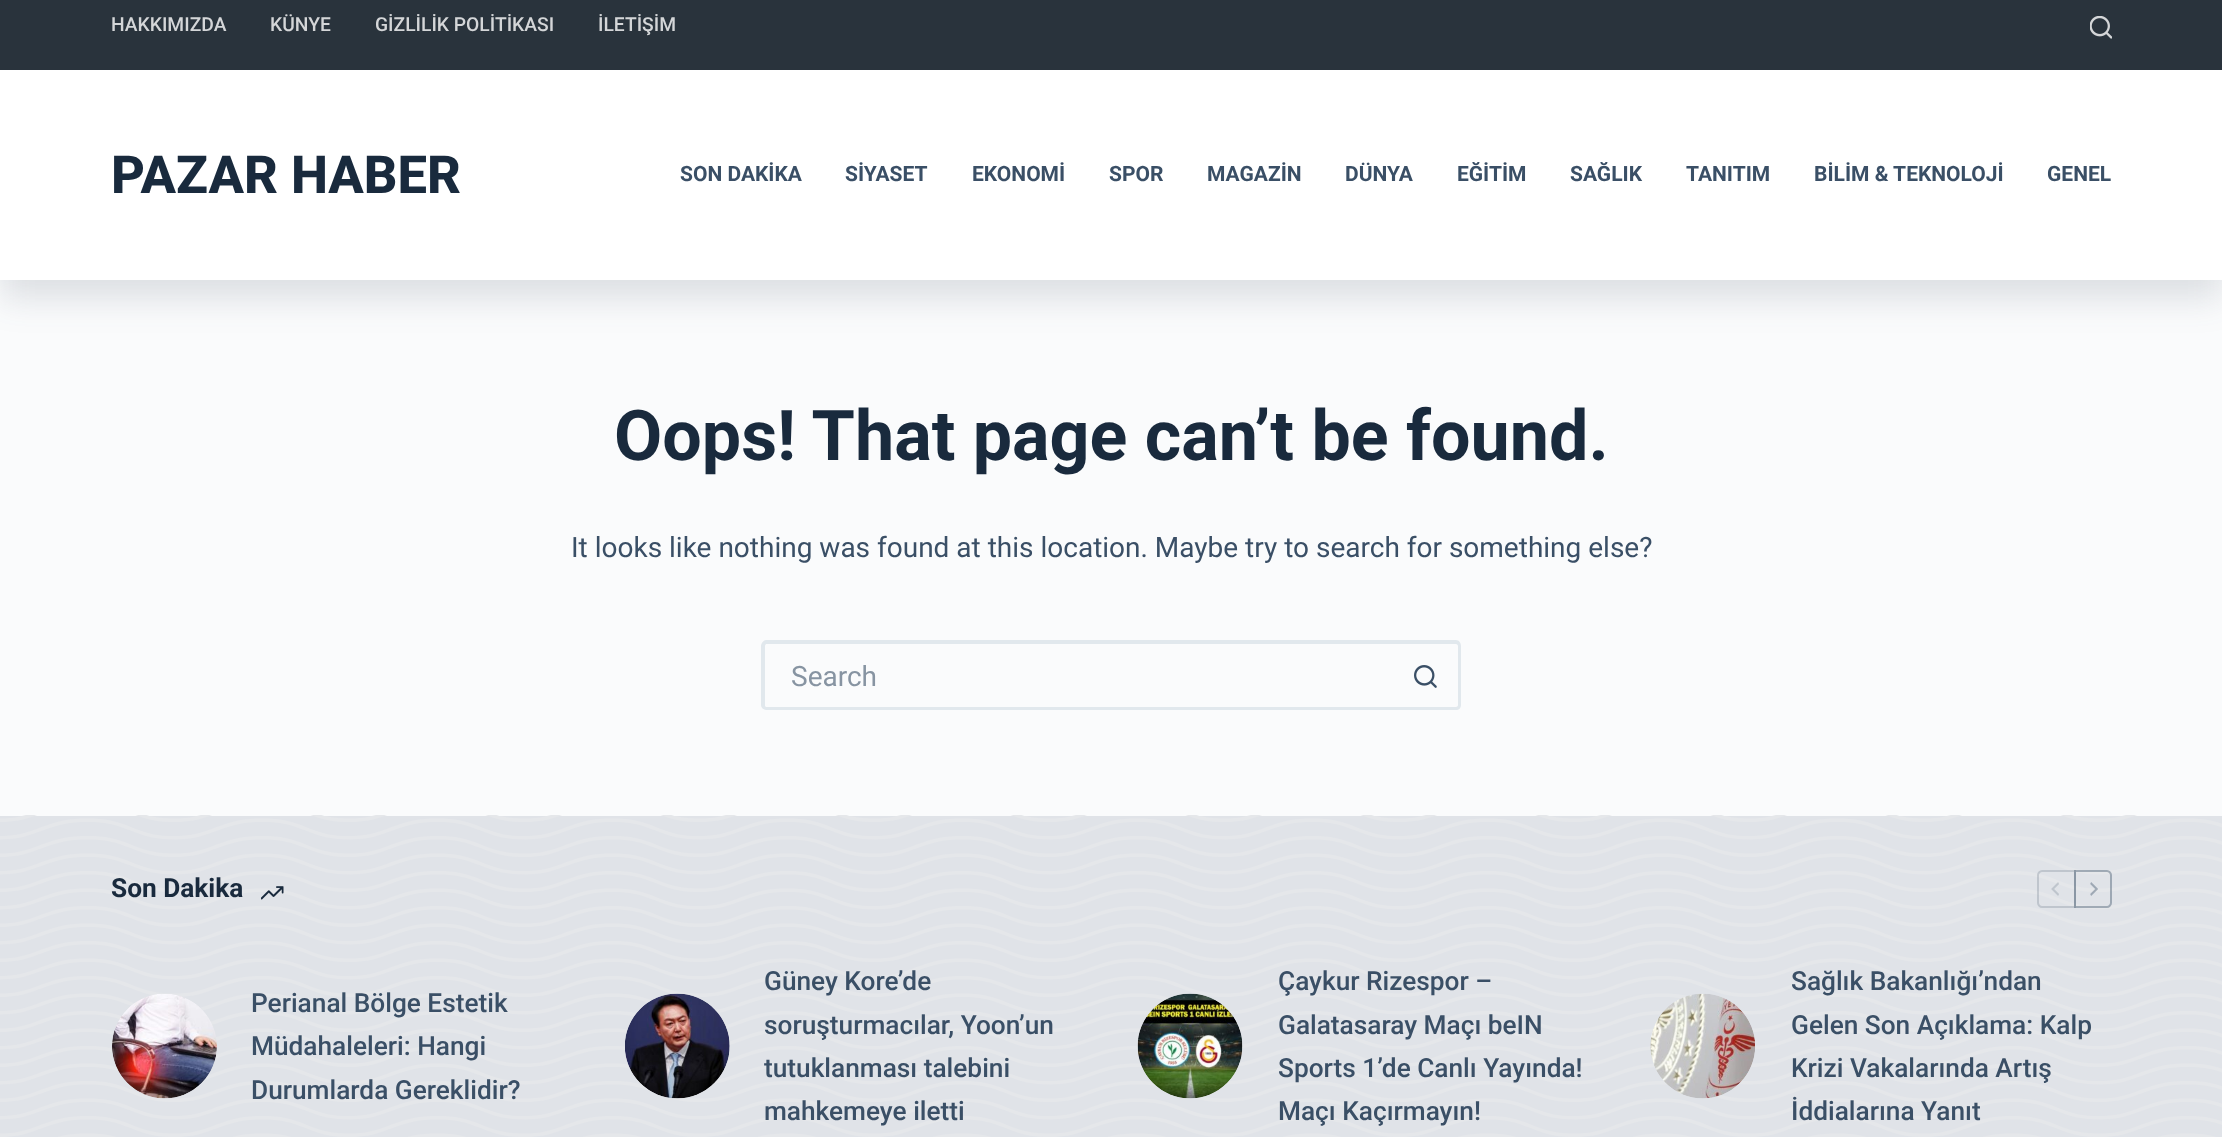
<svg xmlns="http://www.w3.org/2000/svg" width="2222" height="1137">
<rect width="100%" height="100%" fill="#fafbfc"/>
<rect y="88" width="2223" height="210" fill="#2c3e5026" filter="blur(17.5px)"/>
<rect width="2222" height="70" fill="#29333c"/>
<text x="111" y="31" style="font-family:Roboto;font-size:19.25px;font-weight:500;fill:#d4d6d8">HAKKIMIZDA</text>
<text x="270" y="31" style="font-family:Roboto;font-size:19.25px;font-weight:500;fill:#d4d6d8">KÜNYE</text>
<text x="375" y="31" style="font-family:Roboto;font-size:19.25px;font-weight:500;fill:#d4d6d8">GİZLİLİK POLİTİKASI</text>
<text x="598" y="31" style="font-family:Roboto;font-size:19.25px;font-weight:500;fill:#d4d6d8">İLETİŞİM</text>
<image x="2090" y="16" width="22" height="23" href="media/1.png"/>
<rect y="70" width="2222" height="210" fill="#fff"/>
<text x="111" y="193" style="font-family:Roboto;font-size:52.5px;font-weight:800;fill:#192a3d">PAZAR HABER</text>
<text x="680" y="181" style="font-family:Roboto;font-size:21px;font-weight:bold;fill:#3a4f66">SON DAKİKA</text>
<text x="845" y="181" style="font-family:Roboto;font-size:21px;font-weight:bold;fill:#3a4f66">SİYASET</text>
<text x="972" y="181" style="font-family:Roboto;font-size:21px;font-weight:bold;fill:#3a4f66">EKONOMİ</text>
<text x="1109" y="181" style="font-family:Roboto;font-size:21px;font-weight:bold;fill:#3a4f66">SPOR</text>
<text x="1207" y="181" style="font-family:Roboto;font-size:21px;font-weight:bold;fill:#3a4f66">MAGAZİN</text>
<text x="1345" y="181" style="font-family:Roboto;font-size:21px;font-weight:bold;fill:#3a4f66">DÜNYA</text>
<text x="1457" y="181" style="font-family:Roboto;font-size:21px;font-weight:bold;fill:#3a4f66">EĞİTİM</text>
<text x="1570" y="181" style="font-family:Roboto;font-size:21px;font-weight:bold;fill:#3a4f66">SAĞLIK</text>
<text x="1686" y="181" style="font-family:Roboto;font-size:21px;font-weight:bold;fill:#3a4f66">TANITIM</text>
<text x="1814" y="181" style="font-family:Roboto;font-size:21px;font-weight:bold;fill:#3a4f66">BİLİM &amp; TEKNOLOJİ</text>
<text x="2047" y="181" style="font-family:Roboto;font-size:21px;font-weight:bold;fill:#3a4f66">GENEL</text>
<text x="614" y="460" style="font-family:Roboto;font-size:70px;font-weight:bold;fill:#192a3d">Oops! That page can’t be found.</text>
<text x="571" y="557" style="font-family:Roboto;font-size:28px;fill:#3a4f66">It looks like nothing was found at this location. Maybe try to search for something else?</text>
<path d="M766 640h625v70h-625c-2 0-5-2-5-5v-59c0-3 3-6 5-6zm0 4h625v63h-625l-1-1v-60c0-1 1-2 1-2z" fill="#e1e8ed" fill-rule="evenodd"/>
<text x="791" y="686" style="font-family:Roboto;font-size:28px;fill:#8794a2">Search</text>
<path d="M1391 640h65c3 0 5 3 5 6v59c0 3-2 5-5 5h-65zm0 4h65c1 0 2 1 2 2v59c0 1-1 2-2 2h-65z" fill="#e1e8ed" fill-rule="evenodd"/>
<image x="1414" y="665" width="23" height="23" href="media/2.png"/>
<rect y="816" width="2222" height="321" fill="#e0e3e8"/>
<image x="0" y="815" width="2222" height="322" href="media/3.png"/>
<text x="111" y="897" style="font-family:Roboto;font-size:26.25px;font-weight:bold;fill:#192a3d">Son Dakika</text>
<image x="261" y="886" width="23" height="14" href="media/4.png"/>
<path d="M2042 871h33v36h-33c-2 0-4-2-4-4v-28c0-2 2-4 4-4z" fill="none" stroke="#3a4f6633" stroke-width="2"/>
<image x="2051" y="882" width="8" height="14" href="media/5.png"/>
<path d="M2075 871h32c2 0 4 2 4 4v28c0 2-2 4-4 4h-32z" fill="none" stroke="#3a4f6666" stroke-width="2"/>
<image x="2090" y="882" width="8" height="14" href="media/6.png"/>
<image x="112" y="994" width="105" height="105" href="media/7.png"/>
<text x="251" y="1012" style="font-family:Roboto;font-size:26.25px;font-weight:500;fill:#3a4f66">Perianal Bölge Estetik</text>
<text x="251" y="1055" style="font-family:Roboto;font-size:26.25px;font-weight:500;fill:#3a4f66">Müdahaleleri: Hangi</text>
<text x="251" y="1099" style="font-family:Roboto;font-size:26.25px;font-weight:500;fill:#3a4f66">Durumlarda Gereklidir?</text>
<image x="625" y="993" width="105" height="106" href="media/8.png"/>
<text x="764" y="990" style="font-family:Roboto;font-size:26.25px;font-weight:500;fill:#3a4f66">Güney Kore’de</text>
<text x="764" y="1034" style="font-family:Roboto;font-size:26.25px;font-weight:500;fill:#3a4f66">soruşturmacılar, Yoon’un</text>
<text x="764" y="1077" style="font-family:Roboto;font-size:26.25px;font-weight:500;fill:#3a4f66">tutuklanması talebini</text>
<text x="764" y="1120" style="font-family:Roboto;font-size:26.25px;font-weight:500;fill:#3a4f66">mahkemeye iletti</text>
<image x="1137" y="993" width="106" height="106" href="media/9.png"/>
<text x="1278" y="990" style="font-family:Roboto;font-size:26.25px;font-weight:500;fill:#3a4f66">Çaykur Rizespor –</text>
<text x="1278" y="1034" style="font-family:Roboto;font-size:26.25px;font-weight:500;fill:#3a4f66">Galatasaray Maçı beIN</text>
<text x="1278" y="1077" style="font-family:Roboto;font-size:26.25px;font-weight:500;fill:#3a4f66">Sports 1’de Canlı Yayında!</text>
<text x="1278" y="1120" style="font-family:Roboto;font-size:26.25px;font-weight:500;fill:#3a4f66">Maçı Kaçırmayın!</text>
<image x="1650" y="993" width="105" height="106" href="media/10.png"/>
<text x="1791" y="990" style="font-family:Roboto;font-size:26.25px;font-weight:500;fill:#3a4f66">Sağlık Bakanlığı’ndan</text>
<text x="1791" y="1034" style="font-family:Roboto;font-size:26.25px;font-weight:500;fill:#3a4f66">Gelen Son Açıklama: Kalp</text>
<text x="1791" y="1077" style="font-family:Roboto;font-size:26.25px;font-weight:500;fill:#3a4f66">Krizi Vakalarında Artış</text>
<text x="1791" y="1120" style="font-family:Roboto;font-size:26.25px;font-weight:500;fill:#3a4f66">İddialarına Yanıt</text>
</svg>
